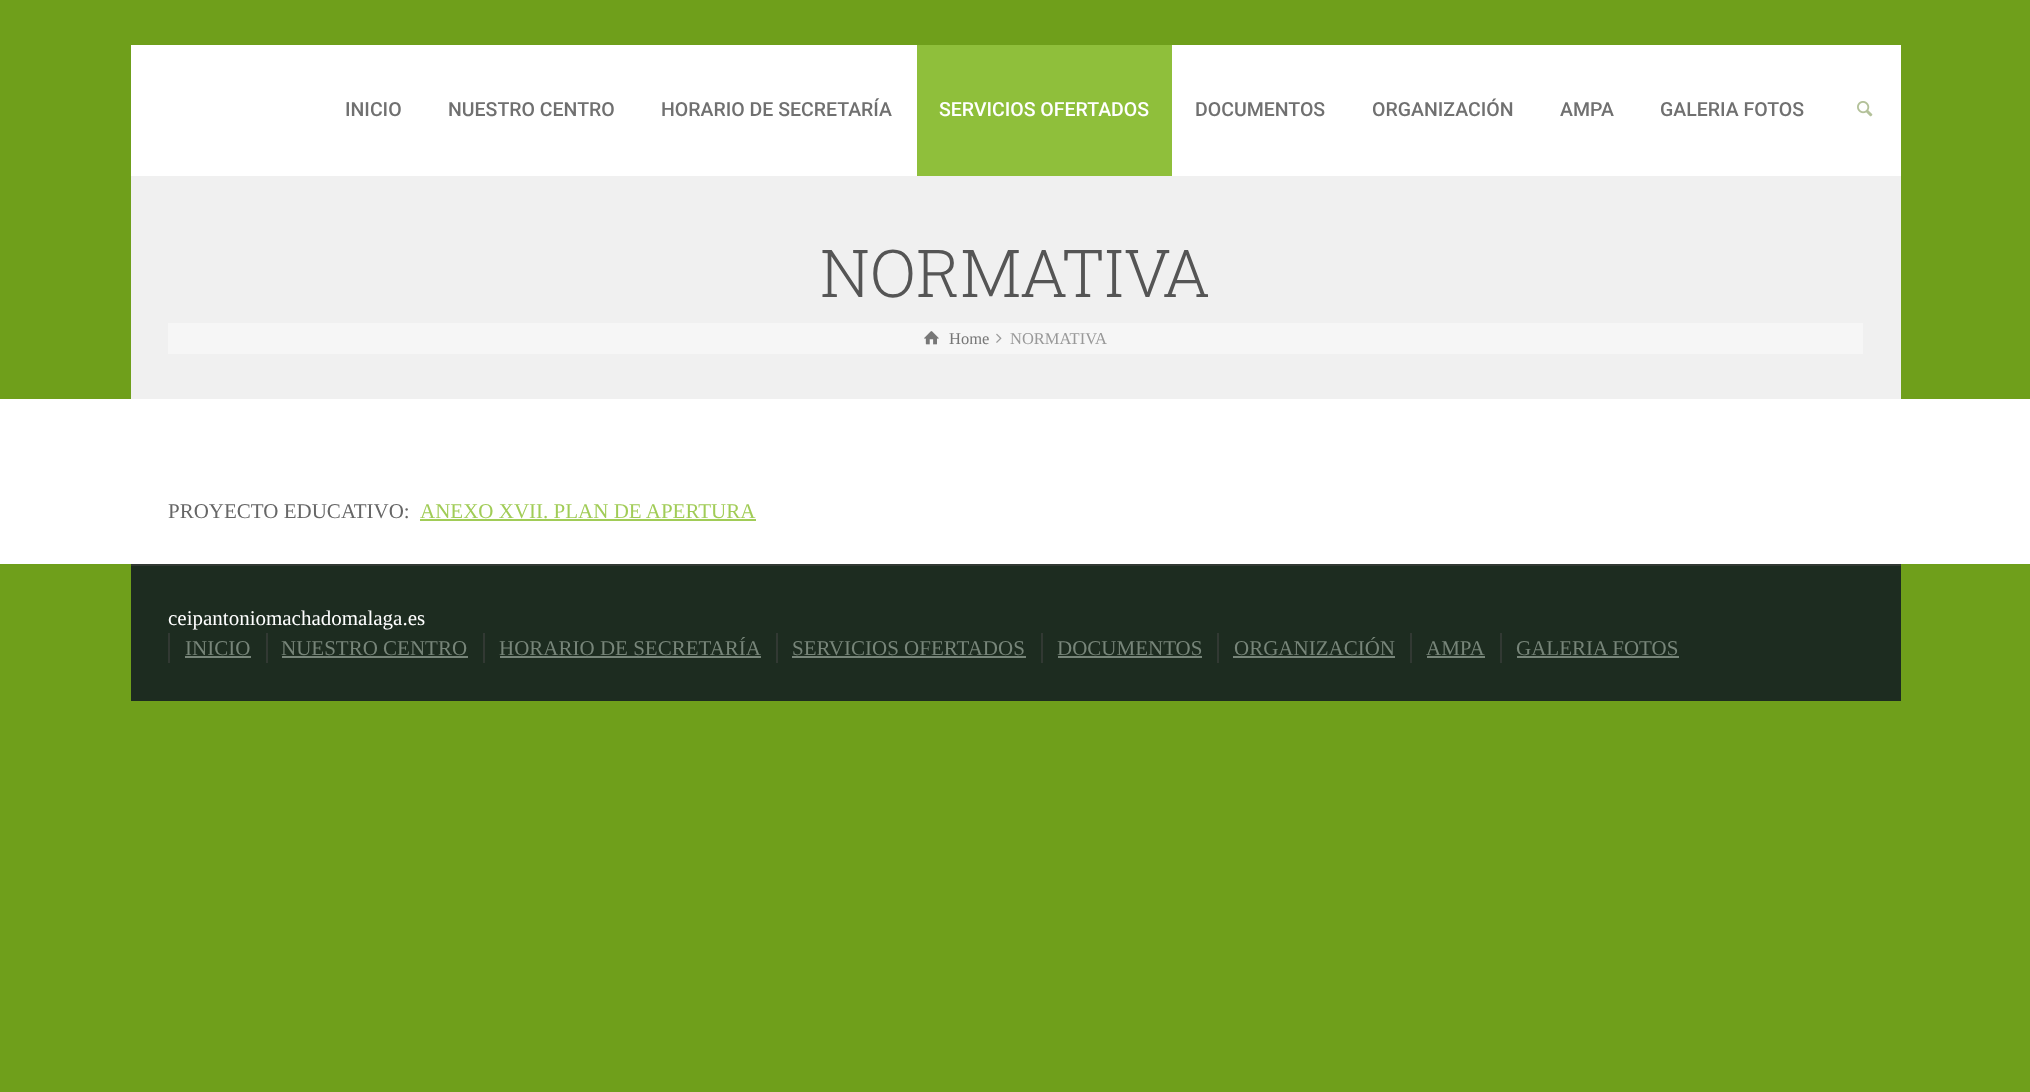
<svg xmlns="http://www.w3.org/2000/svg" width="2030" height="1092">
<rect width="100%" height="100%" fill="#6f9f1b"/>
<rect x="131" y="45" width="1770" height="131" fill="#fff"/>
<text x="345" y="116" style="font-family:Roboto;font-size:19.5px;font-weight:500;fill:#707070">INICIO</text>
<text x="448" y="116" style="font-family:Roboto;font-size:19.5px;font-weight:500;fill:#707070">NUESTRO CENTRO</text>
<text x="661" y="116" style="font-family:Roboto;font-size:19.5px;font-weight:500;fill:#707070">HORARIO DE SECRETARÍA</text>
<rect x="917" y="45" width="255" height="131" fill="#8fbf3b"/>
<text x="939" y="116" style="font-family:Roboto;font-size:19.5px;font-weight:500;fill:#fff">SERVICIOS OFERTADOS</text>
<text x="1195" y="116" style="font-family:Roboto;font-size:19.5px;font-weight:500;fill:#707070">DOCUMENTOS</text>
<text x="1372" y="116" style="font-family:Roboto;font-size:19.5px;font-weight:500;fill:#707070">ORGANIZACIÓN</text>
<text x="1560" y="116" style="font-family:Roboto;font-size:19.5px;font-weight:500;fill:#707070">AMPA</text>
<text x="1660" y="116" style="font-family:Roboto;font-size:19.5px;font-weight:500;fill:#707070">GALERIA FOTOS</text>
<image x="1857" y="101" width="16" height="16" href="media/1.png"/>
<rect x="131" y="176" width="1770" height="223" fill="#f0f0f0"/>
<text x="820" y="297" style="font-family:Roboto Slab;font-size:66px;font-weight:300;fill:#555">NORMATIVA</text>
<rect x="168" y="323" width="1695" height="31" fill="#f6f6f6"/>
<image x="924" y="331" width="15" height="14" href="media/2.png"/>
<text x="949" y="344" style="font-family:Liberation Serif;font-size:16.5px;fill:#777">Home</text>
<image x="996" y="333" width="6" height="10" href="media/3.png"/>
<text x="1010" y="344" style="font-family:Liberation Serif;font-size:16.5px;fill:#999">NORMATIVA</text>
<rect y="399" width="2030" height="165" fill="#fff"/>
<text x="168" y="518" style="font-family:Liberation Serif;font-size:21px;fill:#666">PROYECTO EDUCATIVO:</text>
<text x="420" y="518" style="font-family:Liberation Serif;font-size:21px;fill:#a1cc57">ANEXO XVII. PLAN DE APERTURA</text>
<rect x="420" y="519" width="336" height="2" fill="#a1cc57"/>
<rect x="131" y="566" width="1770" height="135" fill="#1d2c20"/>
<rect x="131" y="564" width="1770" height="2" fill="#323933"/>
<text x="168" y="625" style="font-family:Liberation Serif;font-size:21px;fill:#fff">ceipantoniomachadomalaga.es</text>
<rect x="168" y="633" width="2" height="30" fill="#323933"/>
<text x="185" y="655" style="font-family:Liberation Serif;font-size:21px;fill:#778579">INICIO</text>
<rect x="185" y="656" width="66" height="2" fill="#778579"/>
<rect x="266" y="633" width="2" height="30" fill="#323933"/>
<text x="281" y="655" style="font-family:Liberation Serif;font-size:21px;fill:#778579">NUESTRO CENTRO</text>
<rect x="282" y="656" width="186" height="2" fill="#778579"/>
<rect x="483" y="633" width="2" height="30" fill="#323933"/>
<text x="499" y="655" style="font-family:Liberation Serif;font-size:21px;fill:#778579">HORARIO DE SECRETARÍA</text>
<rect x="500" y="656" width="261" height="2" fill="#778579"/>
<rect x="776" y="633" width="2" height="30" fill="#323933"/>
<text x="792" y="655" style="font-family:Liberation Serif;font-size:21px;fill:#778579">SERVICIOS OFERTADOS</text>
<rect x="792" y="656" width="234" height="2" fill="#778579"/>
<rect x="1041" y="633" width="2" height="30" fill="#323933"/>
<text x="1057" y="655" style="font-family:Liberation Serif;font-size:21px;fill:#778579">DOCUMENTOS</text>
<rect x="1058" y="656" width="144" height="2" fill="#778579"/>
<rect x="1217" y="633" width="2" height="30" fill="#323933"/>
<text x="1234" y="655" style="font-family:Liberation Serif;font-size:21px;fill:#778579">ORGANIZACIÓN</text>
<rect x="1233" y="656" width="162" height="2" fill="#778579"/>
<rect x="1410" y="633" width="2" height="30" fill="#323933"/>
<text x="1426" y="655" style="font-family:Liberation Serif;font-size:21px;fill:#778579">AMPA</text>
<rect x="1427" y="656" width="58" height="2" fill="#778579"/>
<rect x="1500" y="633" width="2" height="30" fill="#323933"/>
<text x="1516" y="655" style="font-family:Liberation Serif;font-size:21px;fill:#778579">GALERIA FOTOS</text>
<rect x="1517" y="656" width="162" height="2" fill="#778579"/>
</svg>
